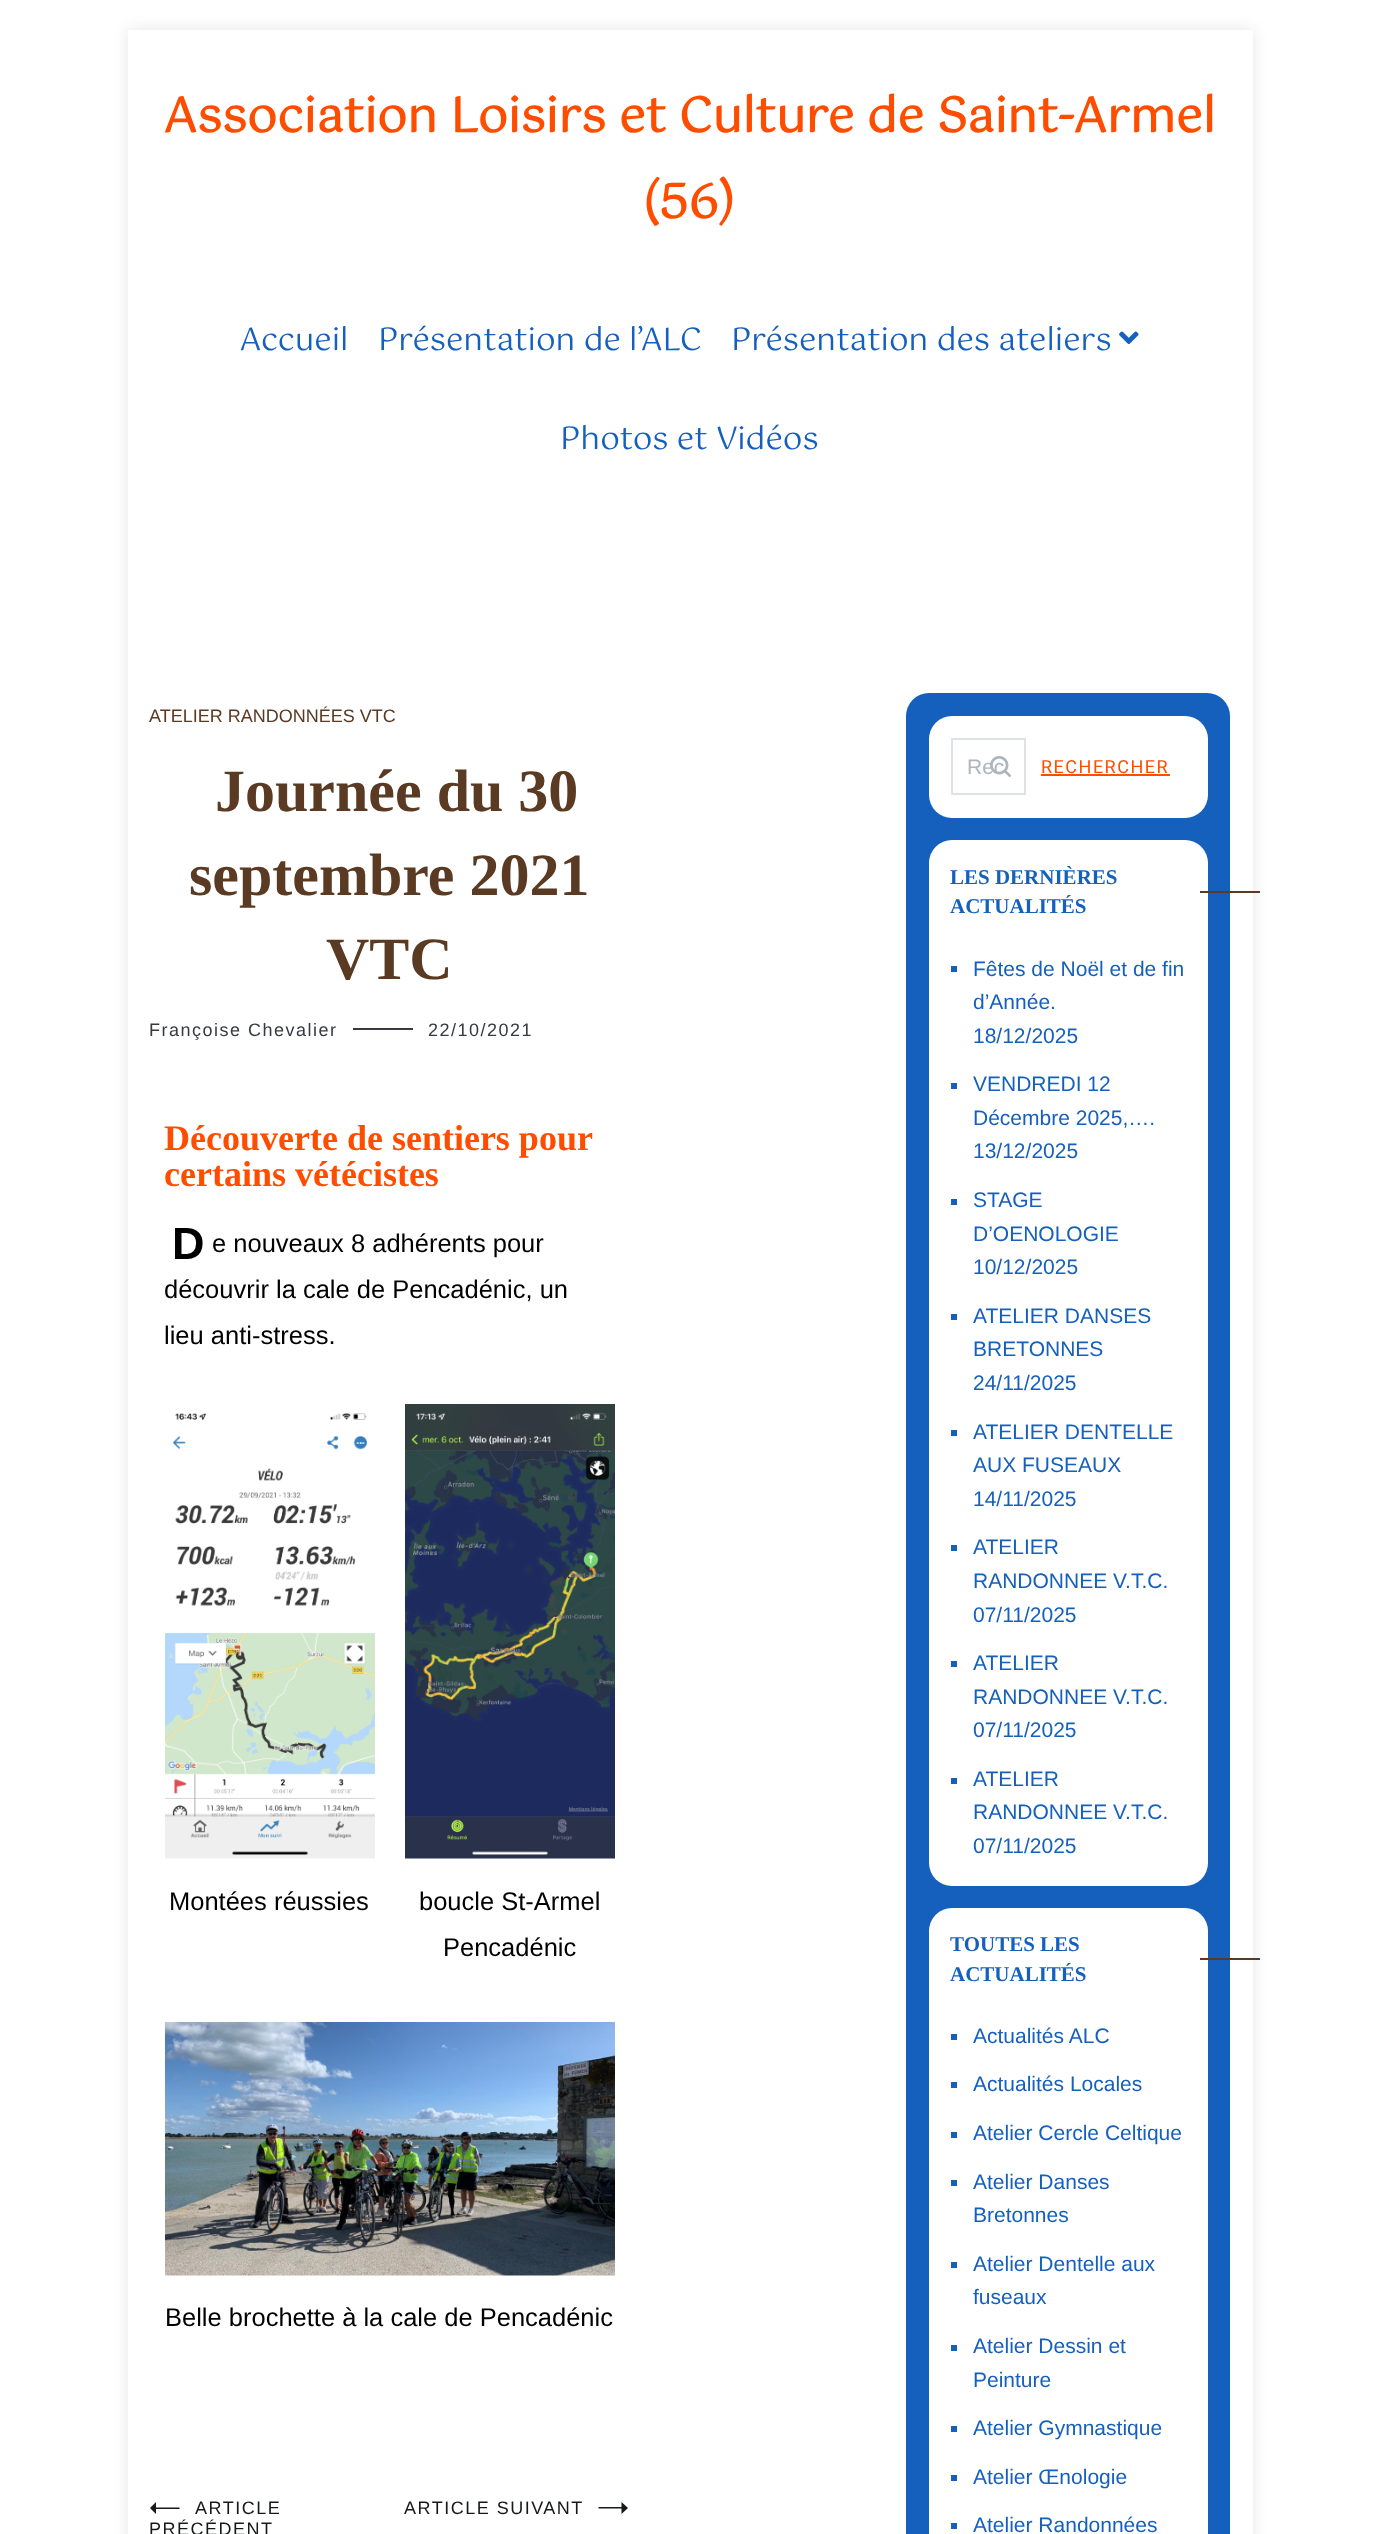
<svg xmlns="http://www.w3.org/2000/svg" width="1378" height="2534">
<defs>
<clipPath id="clip1"><path d="M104 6h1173v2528h-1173zm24 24h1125v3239h-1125z" clip-rule="evenodd"/></clipPath>
</defs>
<rect width="100%" height="100%" fill="#fff"/>
<g clip-path="url(#clip1)">
<rect x="128" y="30" width="1125" height="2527" fill="#0000001a" filter="blur(7.5px)"/>
</g>
<rect x="1252" y="566" width="1" height="7" fill="#fff"/>
<text x="164" y="132" style="font-family:Gotu;font-size:48px;font-weight:bold;fill:#ff4d00">Association Loisirs et Culture de Saint-Armel</text>
<text x="642" y="218" style="font-family:Gotu;font-size:48px;font-weight:bold;fill:#ff4d00">(56)</text>
<text x="240" y="350" style="font-family:Gotu;font-size:31.25px;fill:#1560bd">Accueil</text>
<text x="378" y="350" style="font-family:Gotu;font-size:31.25px;fill:#1560bd">Présentation de l’ALC</text>
<text x="731" y="350" style="font-family:Gotu;font-size:31.25px;fill:#1560bd">Présentation des ateliers</text>
<image x="1119" y="331" width="20" height="14" href="media/1.png"/>
<text x="560" y="449" style="font-family:Gotu;font-size:31.25px;fill:#1560bd">Photos et Vidéos</text>
<text x="149" y="722" style="font-family:Liberation Sans;font-size:18px;fill:#5a3a22">ATELIER RANDONNÉES VTC</text>
<text x="215" y="811" style="font-family:Liberation Serif;font-size:60px;font-weight:bold;fill:#5a3a22">Journée du 30</text>
<text x="189" y="895" style="font-family:Liberation Serif;font-size:60px;font-weight:bold;fill:#5a3a22">septembre 2021</text>
<text x="326" y="979" style="font-family:Liberation Serif;font-size:60px;font-weight:bold;fill:#5a3a22">VTC</text>
<text x="149" y="1036" style="font-family:Liberation Sans;font-size:18px;letter-spacing:1.5px;fill:#363b40">Françoise Chevalier</text>
<rect x="353" y="1028" width="60" height="2" fill="#363b40"/>
<text x="428" y="1036" style="font-family:Liberation Sans;font-size:18px;letter-spacing:1.5px;fill:#363b40">22/10/2021</text>
<text x="164" y="1150" style="font-family:Liberation Serif;font-size:36px;font-weight:bold;fill:#ff4d00">Découverte de sentiers pour</text>
<text x="164" y="1186" style="font-family:Liberation Serif;font-size:36px;font-weight:bold;fill:#ff4d00">certains vétécistes</text>
<text x="172" y="1259" style="font-family:Liberation Sans;font-size:45px;font-weight:bold;fill:#000">D</text>
<text x="212" y="1252" style="font-family:Liberation Sans;font-size:25.5px;fill:#000">e nouveaux 8 adhérents pour</text>
<text x="164" y="1298" style="font-family:Liberation Sans;font-size:25.5px;fill:#000">découvrir la cale de Pencadénic, un</text>
<text x="164" y="1344" style="font-family:Liberation Sans;font-size:25.5px;fill:#000">lieu anti-stress.</text>
<image x="165" y="1413" width="210" height="446" href="media/2.png"/>
<text x="169" y="1910" style="font-family:Liberation Sans;font-size:25.5px;fill:#000">Montées réussies</text>
<image x="405" y="1404" width="210" height="455" href="media/3.png"/>
<text x="419" y="1910" style="font-family:Liberation Sans;font-size:25.5px;fill:#000">boucle St-Armel</text>
<text x="443" y="1956" style="font-family:Liberation Sans;font-size:25.5px;fill:#000">Pencadénic</text>
<image x="165" y="2022" width="450" height="254" href="media/4.png"/>
<text x="165" y="2326" style="font-family:Liberation Sans;font-size:25.5px;fill:#000">Belle brochette à la cale de Pencadénic</text>
<path d="M150 2508l6-6v12zm6-.5h23.5v1.5h-23.5z" fill="#16181a"/>
<text x="195" y="2514" style="font-family:Liberation Sans;font-size:18px;letter-spacing:1.5px;fill:#16181a">ARTICLE</text>
<text x="149" y="2535" style="font-family:Liberation Sans;font-size:18px;letter-spacing:1.5px;fill:#16181a">PRÉCÉDENT</text>
<text x="404" y="2514" style="font-family:Liberation Sans;font-size:18px;letter-spacing:1.5px;fill:#16181a">ARTICLE SUIVANT</text>
<path d="M628 2508l-6.5 6v-12zm-29.5-1h23.5v1.5h-23.5z" fill="#16181a"/>
<rect x="906" y="693" width="324" height="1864" rx="23" fill="#1560bd"/>
<rect x="929" y="716" width="279" height="102" rx="23" fill="#fff"/>
<rect x="952" y="739" width="73" height="55" fill="none" stroke="#dee2e6" stroke-width="2"/>
<text x="967" y="774" style="font-family:Liberation Sans;font-size:21px;fill:#adb5bd">Rec</text>
<image x="990" y="756" width="21" height="21" href="media/5.png"/>
<text x="1041" y="773" style="font-family:Roboto;font-size:18px;letter-spacing:1.5px;fill:#ff4d00">RECHERCHER</text>
<rect x="1041" y="774" width="129" height="2" fill="#ff4d00"/>
<rect x="929" y="840" width="279" height="1046" rx="23" fill="#fff"/>
<text x="950" y="884" style="font-family:Liberation Serif;font-size:21px;font-weight:bold;fill:#1560bd">LES DERNIÈRES</text>
<rect x="1200" y="891" width="60" height="2" fill="#5a3a22"/>
<text x="950" y="913" style="font-family:Liberation Serif;font-size:21px;font-weight:bold;fill:#1560bd">ACTUALITÉS</text>
<rect x="951" y="966" width="6" height="6" fill="#1560bd"/>
<text x="973" y="976" style="font-family:Liberation Sans;font-size:21px;fill:#1560bd">Fêtes de Noël et de fin</text>
<text x="973" y="1009" style="font-family:Liberation Sans;font-size:21px;fill:#1560bd">d’Année.</text>
<text x="973" y="1043" style="font-family:Liberation Sans;font-size:21px;fill:#1560bd">18/12/2025</text>
<rect x="951" y="1083" width="6" height="6" fill="#1560bd"/>
<text x="973" y="1091" style="font-family:Liberation Sans;font-size:21px;fill:#1560bd">VENDREDI 12</text>
<text x="973" y="1125" style="font-family:Liberation Sans;font-size:21px;fill:#1560bd">Décembre 2025,….</text>
<text x="973" y="1158" style="font-family:Liberation Sans;font-size:21px;fill:#1560bd">13/12/2025</text>
<rect x="951" y="1199" width="6" height="6" fill="#1560bd"/>
<text x="973" y="1207" style="font-family:Liberation Sans;font-size:21px;fill:#1560bd">STAGE</text>
<text x="973" y="1241" style="font-family:Liberation Sans;font-size:21px;fill:#1560bd">D’OENOLOGIE</text>
<text x="973" y="1274" style="font-family:Liberation Sans;font-size:21px;fill:#1560bd">10/12/2025</text>
<rect x="951" y="1314" width="6" height="6" fill="#1560bd"/>
<text x="973" y="1323" style="font-family:Liberation Sans;font-size:21px;fill:#1560bd">ATELIER DANSES</text>
<text x="973" y="1356" style="font-family:Liberation Sans;font-size:21px;fill:#1560bd">BRETONNES</text>
<text x="973" y="1390" style="font-family:Liberation Sans;font-size:21px;fill:#1560bd">24/11/2025</text>
<rect x="951" y="1430" width="6" height="6" fill="#1560bd"/>
<text x="973" y="1439" style="font-family:Liberation Sans;font-size:21px;fill:#1560bd">ATELIER DENTELLE</text>
<text x="973" y="1472" style="font-family:Liberation Sans;font-size:21px;fill:#1560bd">AUX FUSEAUX</text>
<text x="973" y="1506" style="font-family:Liberation Sans;font-size:21px;fill:#1560bd">14/11/2025</text>
<rect x="951" y="1545" width="6" height="6" fill="#1560bd"/>
<text x="973" y="1554" style="font-family:Liberation Sans;font-size:21px;fill:#1560bd">ATELIER</text>
<text x="973" y="1588" style="font-family:Liberation Sans;font-size:21px;fill:#1560bd">RANDONNEE V.T.C.</text>
<text x="973" y="1622" style="font-family:Liberation Sans;font-size:21px;fill:#1560bd">07/11/2025</text>
<rect x="951" y="1661" width="6" height="6" fill="#1560bd"/>
<text x="973" y="1670" style="font-family:Liberation Sans;font-size:21px;fill:#1560bd">ATELIER</text>
<text x="973" y="1704" style="font-family:Liberation Sans;font-size:21px;fill:#1560bd">RANDONNEE V.T.C.</text>
<text x="973" y="1737" style="font-family:Liberation Sans;font-size:21px;fill:#1560bd">07/11/2025</text>
<rect x="951" y="1778" width="6" height="6" fill="#1560bd"/>
<text x="973" y="1786" style="font-family:Liberation Sans;font-size:21px;fill:#1560bd">ATELIER</text>
<text x="973" y="1819" style="font-family:Liberation Sans;font-size:21px;fill:#1560bd">RANDONNEE V.T.C.</text>
<text x="973" y="1853" style="font-family:Liberation Sans;font-size:21px;fill:#1560bd">07/11/2025</text>
<rect x="929" y="1908" width="279" height="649" rx="23" fill="#fff"/>
<text x="950" y="1951" style="font-family:Liberation Serif;font-size:21px;font-weight:bold;fill:#1560bd">TOUTES LES</text>
<rect x="1200" y="1958" width="60" height="2" fill="#5a3a22"/>
<text x="950" y="1981" style="font-family:Liberation Serif;font-size:21px;font-weight:bold;fill:#1560bd">ACTUALITÉS</text>
<rect x="951" y="2034" width="6" height="6" fill="#1560bd"/>
<text x="973" y="2043" style="font-family:Liberation Sans;font-size:21px;fill:#1560bd">Actualités ALC</text>
<rect x="951" y="2082" width="6" height="6" fill="#1560bd"/>
<text x="973" y="2091" style="font-family:Liberation Sans;font-size:21px;fill:#1560bd">Actualités Locales</text>
<rect x="951" y="2132" width="6" height="6" fill="#1560bd"/>
<text x="973" y="2140" style="font-family:Liberation Sans;font-size:21px;fill:#1560bd">Atelier Cercle Celtique</text>
<rect x="951" y="2180" width="6" height="6" fill="#1560bd"/>
<text x="973" y="2189" style="font-family:Liberation Sans;font-size:21px;fill:#1560bd">Atelier Danses</text>
<text x="973" y="2222" style="font-family:Liberation Sans;font-size:21px;fill:#1560bd">Bretonnes</text>
<rect x="951" y="2262" width="6" height="6" fill="#1560bd"/>
<text x="973" y="2271" style="font-family:Liberation Sans;font-size:21px;fill:#1560bd">Atelier Dentelle aux</text>
<text x="973" y="2304" style="font-family:Liberation Sans;font-size:21px;fill:#1560bd">fuseaux</text>
<rect x="951" y="2345" width="6" height="6" fill="#1560bd"/>
<text x="973" y="2353" style="font-family:Liberation Sans;font-size:21px;fill:#1560bd">Atelier Dessin et</text>
<text x="973" y="2387" style="font-family:Liberation Sans;font-size:21px;fill:#1560bd">Peinture</text>
<rect x="951" y="2426" width="6" height="6" fill="#1560bd"/>
<text x="973" y="2435" style="font-family:Liberation Sans;font-size:21px;fill:#1560bd">Atelier Gymnastique</text>
<rect x="951" y="2475" width="6" height="6" fill="#1560bd"/>
<text x="973" y="2484" style="font-family:Liberation Sans;font-size:21px;fill:#1560bd">Atelier Œnologie</text>
<rect x="951" y="2523" width="6" height="6" fill="#1560bd"/>
<text x="973" y="2532" style="font-family:Liberation Sans;font-size:21px;fill:#1560bd">Atelier Randonnées</text>
</svg>
